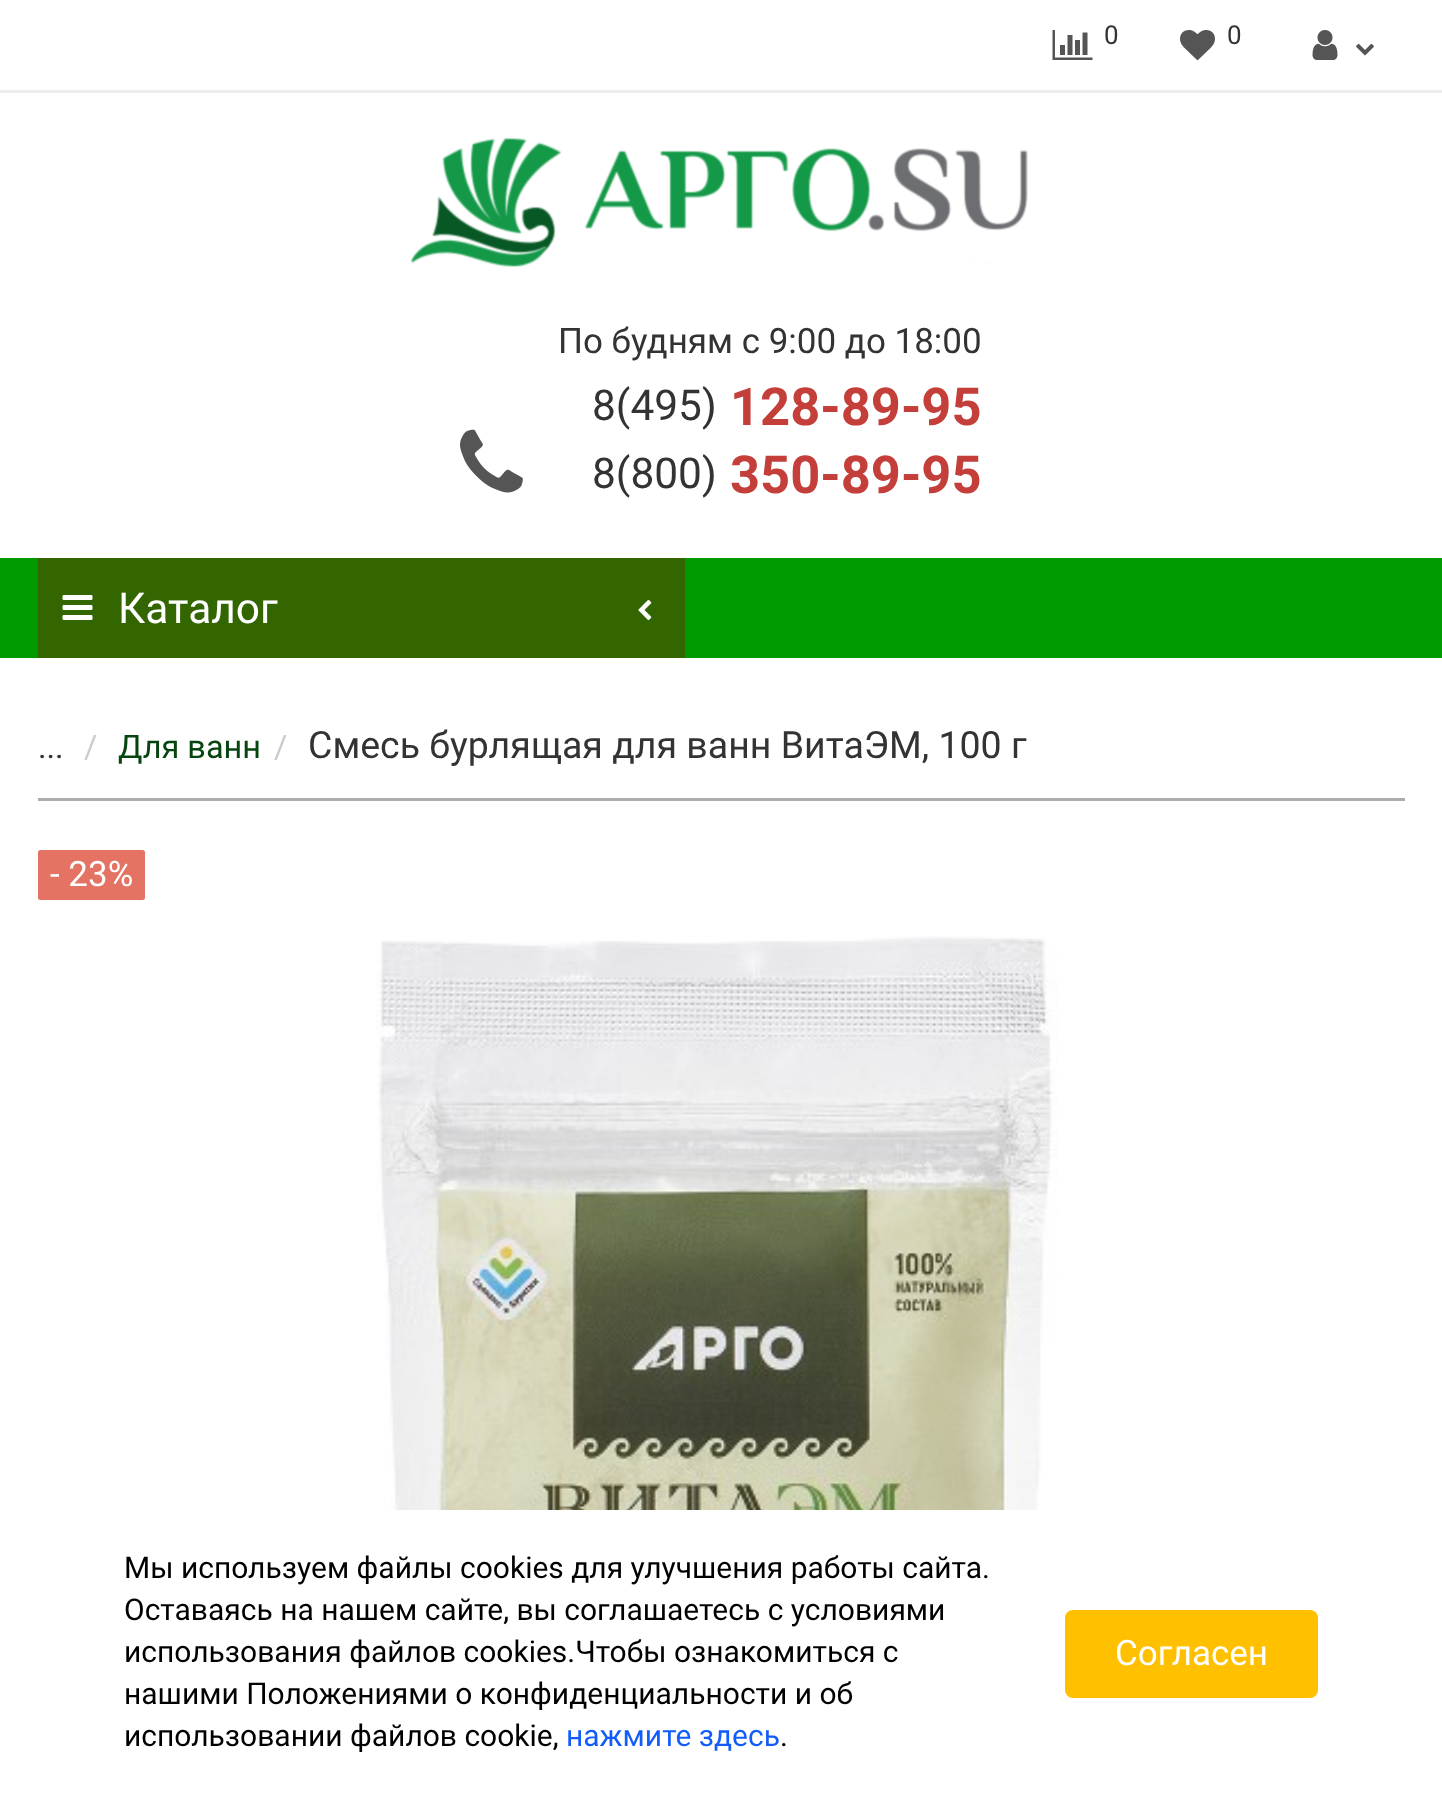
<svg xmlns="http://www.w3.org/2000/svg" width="1442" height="1794">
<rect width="100%" height="100%" fill="#fff"/>
<rect y="90" width="1442" height="3" fill="#ededed"/>
<image x="1052" y="30" width="41" height="30" href="media/1.png"/>
<text x="1104" y="44" style="font-family:Roboto;font-size:26px;fill:#333">0</text>
<image x="1180" y="30" width="35" height="30" href="media/2.png"/>
<text x="1227" y="44" style="font-family:Roboto;font-size:26px;fill:#333">0</text>
<image x="1312" y="30" width="26" height="30" href="media/3.png"/>
<image x="1356" y="43" width="18" height="13" href="media/4.png"/>
<image x="410" y="137" width="618" height="131" href="media/5.png"/>
<image x="460" y="429" width="63" height="64" href="media/6.png"/>
<text x="558" y="353" style="font-family:Roboto;font-size:35px;fill:#333">По будням с 9:00 до 18:00</text>
<text x="592" y="420" style="font-family:Roboto;font-size:42.5px;fill:#333">8(495)</text>
<text x="730" y="425" style="font-family:Roboto;font-size:52.5px;font-weight:bold;fill:#c43f39">128-89-95</text>
<text x="592" y="488" style="font-family:Roboto;font-size:42.5px;fill:#333">8(800)</text>
<text x="730" y="493" style="font-family:Roboto;font-size:52.5px;font-weight:bold;fill:#c43f39">350-89-95</text>
<rect y="558" width="1442" height="100" fill="#090"/>
<rect x="38" y="558" width="647" height="100" fill="#360"/>
<image x="62" y="595" width="31" height="25" href="media/7.png"/>
<text x="118" y="623" style="font-family:Roboto;font-size:42.5px;fill:#fff">Каталог</text>
<image x="638" y="599" width="14" height="22" href="media/8.png"/>
<rect x="38" y="798" width="1367" height="3" fill="#adadad"/>
<text x="38" y="758" style="font-family:Roboto;font-size:32.5px;fill:#333">...</text>
<text x="84" y="758" style="font-family:Roboto;font-size:32.5px;fill:#ccc">/</text>
<text x="118" y="758" style="font-family:Roboto;font-size:32.5px;fill:#074510">Для ванн</text>
<text x="274" y="758" style="font-family:Roboto;font-size:32.5px;fill:#ccc">/</text>
<text x="308" y="758" style="font-family:Roboto;font-size:37.5px;fill:#333">Смесь бурлящая для ванн ВитаЭМ, 100 г</text>
<rect x="38" y="850" width="107" height="50" rx="2.5" fill="#e47364"/>
<text x="50" y="886" style="font-family:Roboto;font-size:35px;fill:#fff">- 23%</text>
<image x="376" y="936" width="682" height="574" href="media/9.png"/>
<text x="124" y="1578" style="font-family:Roboto;font-size:30px;fill:#000">Мы используем файлы cookies для улучшения работы сайта.</text>
<text x="124" y="1620" style="font-family:Roboto;font-size:30px;fill:#000">Оставаясь на нашем сайте, вы соглашаетесь с условиями</text>
<text x="124" y="1662" style="font-family:Roboto;font-size:30px;fill:#000">использования файлов cookies.Чтобы ознакомиться с</text>
<text x="124" y="1704" style="font-family:Roboto;font-size:30px;fill:#000">нашими Положениями о конфиденциальности и об</text>
<text x="124" y="1746" style="font-family:Roboto;font-size:30px;fill:#000">использовании файлов cookie,</text>
<text x="566" y="1746" style="font-family:Roboto;font-size:30px;fill:#115cfa">нажмите здесь</text>
<text x="780" y="1746" style="font-family:Roboto;font-size:30px;fill:#000">.</text>
<rect x="1065" y="1610" width="253" height="88" rx="8" fill="#ffc000"/>
<text x="1115" y="1665" style="font-family:Roboto;font-size:35px;fill:#fff">Согласен</text>
</svg>
